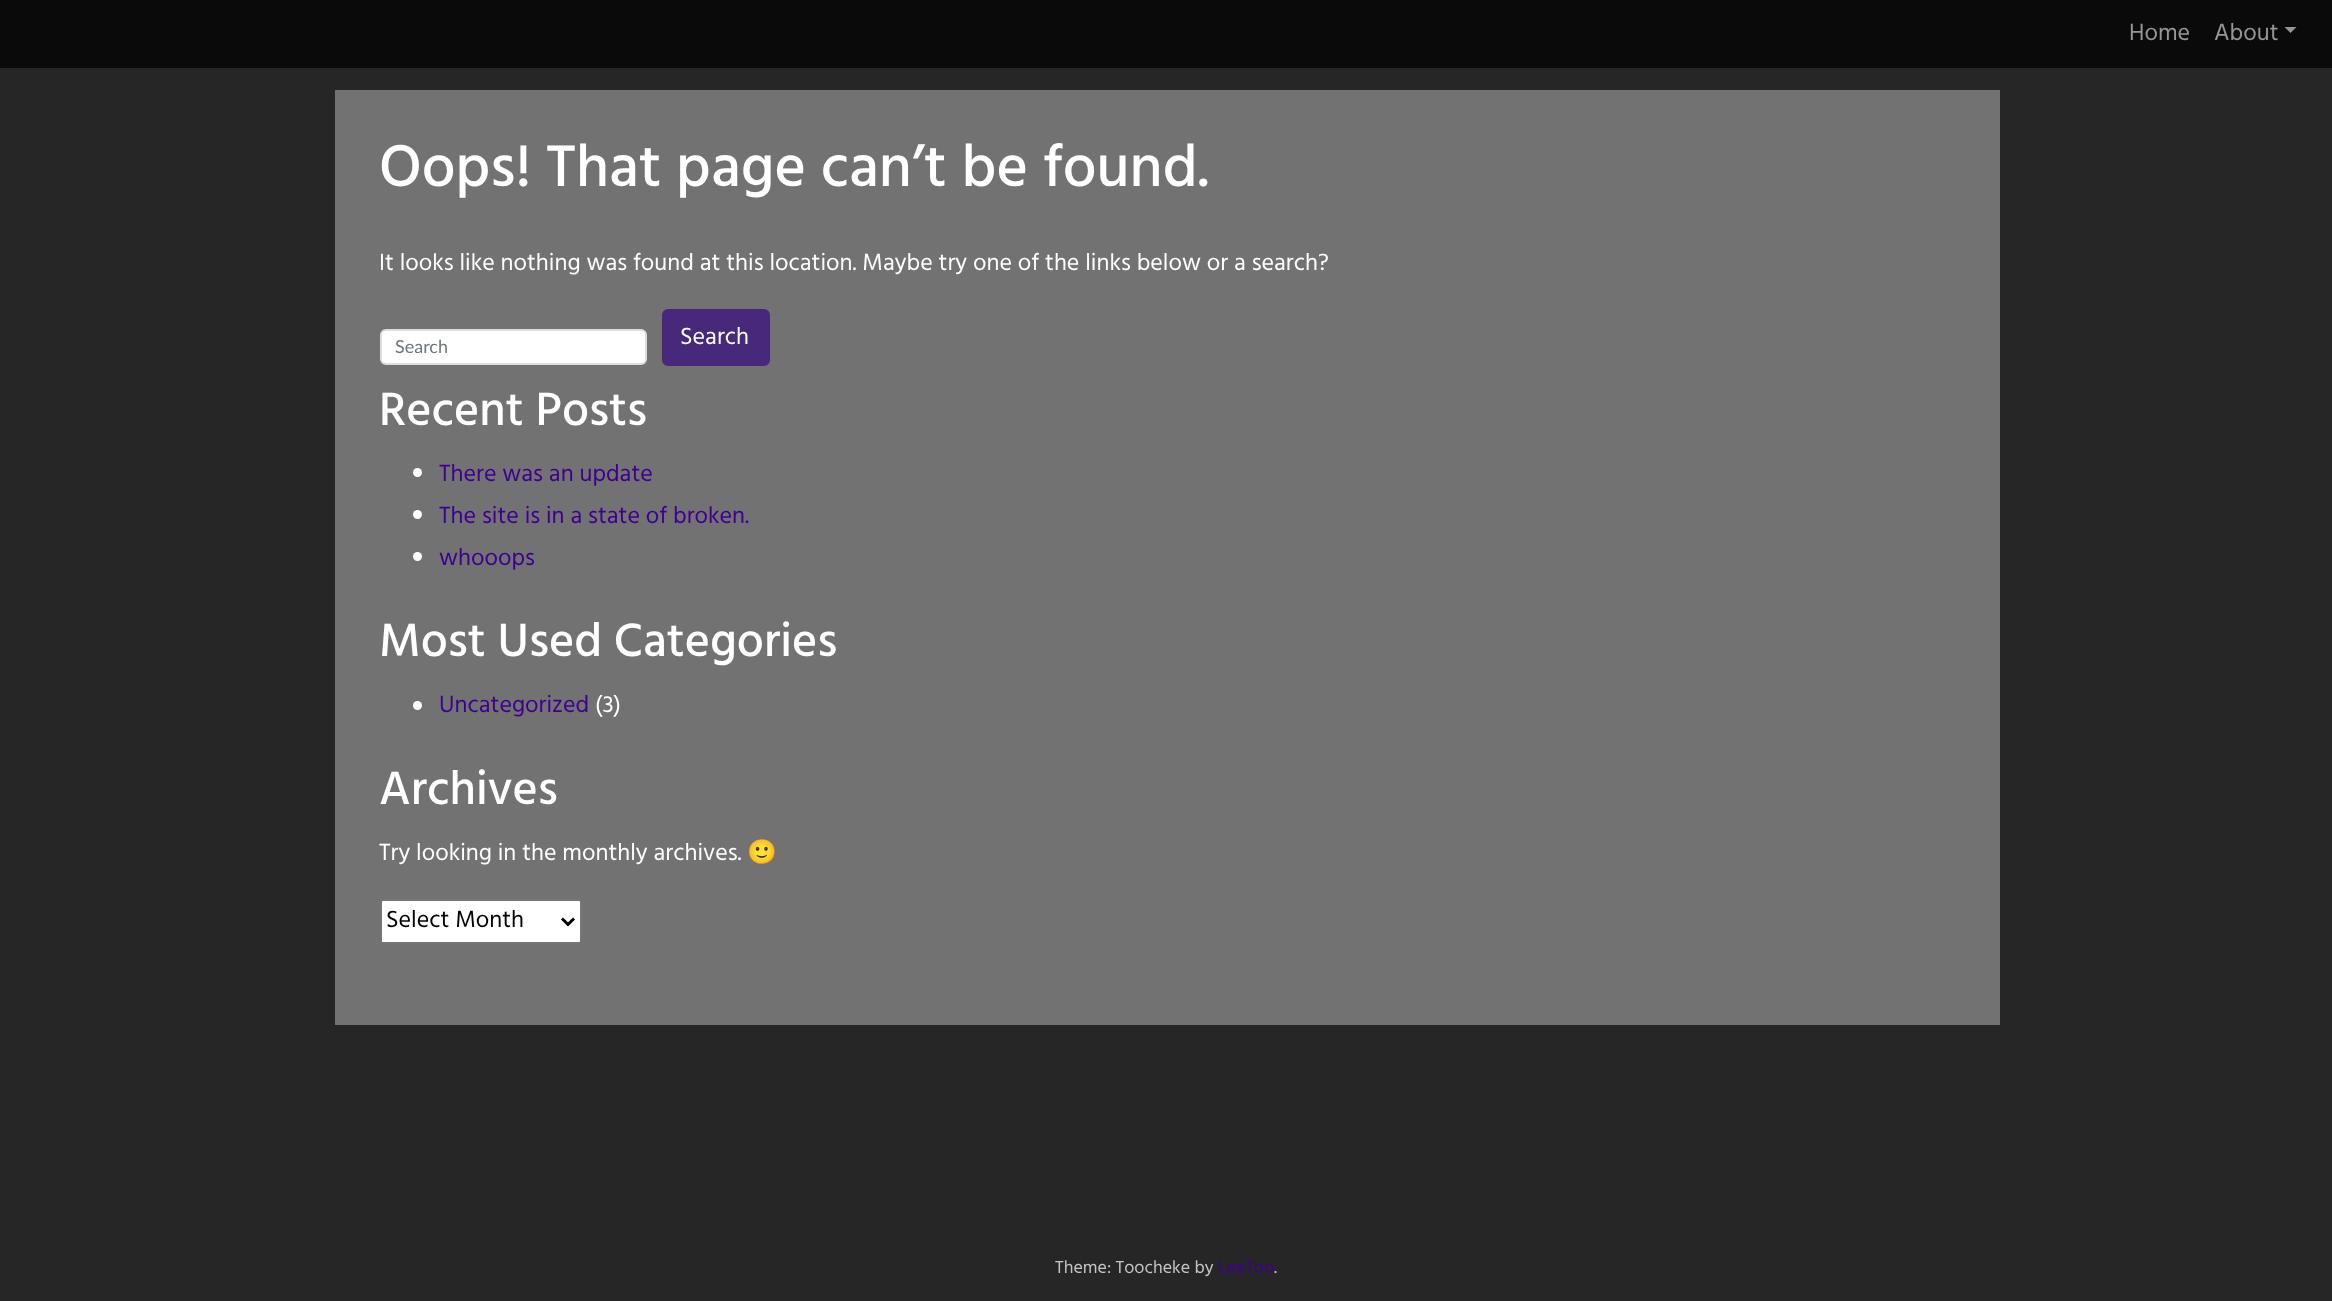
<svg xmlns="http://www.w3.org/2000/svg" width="2332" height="1301">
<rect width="100%" height="100%" fill="#262626"/>
<rect width="2332" height="68" fill="#0a0a0a"/>
<text x="2129" y="40" style="font-family:Hind;font-size:24px;fill:#969696">Home</text>
<text x="2214" y="40" style="font-family:Hind;font-size:24px;fill:#969696">About</text>
<path d="M2284.5 27h12l-6 6z" fill="#969696"/>
<rect x="335" y="90" width="1665" height="935" fill="#727272"/>
<text x="379" y="186" style="font-family:Hind;font-size:60px;font-weight:500;fill:#fff">Oops! That page can’t be found.</text>
<text x="379" y="270" style="font-family:Hind;font-size:24px;fill:#fff">It looks like nothing was found at this location. Maybe try one of the links below or a search?</text>
<rect x="663" y="310" width="106" height="55" rx="5" fill="#47287a" stroke="#47287a" stroke-width="2"/>
<text x="680" y="344" style="font-family:Hind;font-size:24px;fill:#fff">Search</text>
<rect x="381" y="330" width="265" height="34" rx="5" fill="#fff" stroke="#ddd" stroke-width="2"/>
<text x="395" y="353" style="font-family:Lato;font-size:18px;fill:#6c757d">Search</text>
<text x="379" y="425" style="font-family:Hind;font-size:48px;font-weight:500;fill:#fff">Recent Posts</text>
<circle cx="417.5" cy="472.5" r="4.5" fill="#fff"/>
<text x="439" y="481" style="font-family:Hind;font-size:24px;fill:#3d0191">There was an update</text>
<circle cx="417.5" cy="514.5" r="4.5" fill="#fff"/>
<text x="439" y="523" style="font-family:Hind;font-size:24px;fill:#3d0191">The site is in a state of broken.</text>
<circle cx="417.5" cy="556.5" r="4.5" fill="#fff"/>
<text x="439" y="565" style="font-family:Hind;font-size:24px;fill:#3d0191">whooops</text>
<text x="379" y="656" style="font-family:Hind;font-size:48px;font-weight:500;fill:#fff">Most Used Categories</text>
<circle cx="417.5" cy="705.5" r="4.5" fill="#fff"/>
<text x="439" y="712" style="font-family:Hind;font-size:24px;fill:#3d0191">Uncategorized</text>
<text x="595" y="712" style="font-family:Hind;font-size:24px;fill:#fff">(3)</text>
<text x="379" y="804" style="font-family:Hind;font-size:48px;font-weight:500;fill:#fff">Archives</text>
<text x="379" y="860" style="font-family:Hind;font-size:24px;fill:#fff">Try looking in the monthly archives.</text>
<text x="747" y="860" style="font-family:Noto Color Emoji;font-size:24px;fill:#fff">🙂</text>
<rect x="381" y="900" width="200" height="43" rx="2" fill="#fff" stroke="#767676" stroke-width="2"/>
<path d="M562 918.5l6 6l6-6" fill="none" stroke="#000" stroke-width="3"/>
<text x="386" y="927" style="font-family:Hind;font-size:24px;fill:#000">Select Month</text>
<text x="1055" y="1273" style="font-family:Hind;font-size:18px;fill:#c5c5c5">Theme: Toocheke by</text>
<text x="1218" y="1273" style="font-family:Hind;font-size:18px;fill:#3d0191">LeeToo</text>
<text x="1274" y="1273" style="font-family:Hind;font-size:18px;fill:#c5c5c5">.</text>
</svg>
